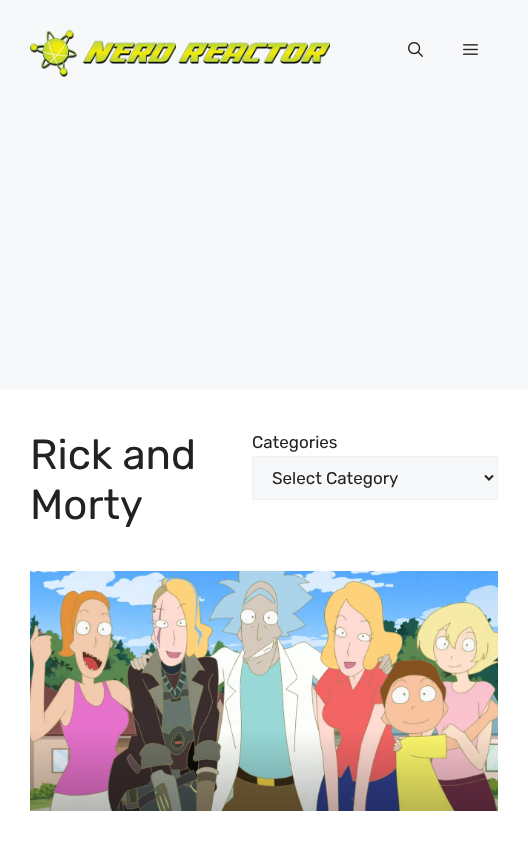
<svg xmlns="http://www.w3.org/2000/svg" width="528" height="843">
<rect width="100%" height="100%" fill="#fff"/>
<rect width="528" height="390" fill="#f7f8f9"/>
<image x="30" y="30" width="300" height="47" href="media/1.png"/>
<image x="408" y="42" width="15" height="15" href="media/2.png"/>
<image x="463" y="44" width="15" height="11" href="media/3.png"/>
<text x="30" y="469" style="font-family:Rubik;font-size:42px;fill:#222">Rick and</text>
<text x="30" y="519" style="font-family:Rubik;font-size:42px;fill:#222">Morty</text>
<text x="252" y="448" style="font-family:Rubik;font-size:17px;fill:#222">Categories</text>
<rect x="252.5" y="456.5" width="245" height="43" fill="#f7f8f9" stroke="#f0f0f0"/>
<path d="M485 475.5l4 4l4-4" fill="none" stroke="#222" stroke-width="2"/>
<text x="272" y="484" style="font-family:Rubik;font-size:17px;fill:#222">Select Category</text>
<image x="30" y="571" width="468" height="240" href="media/4.png"/>
</svg>
